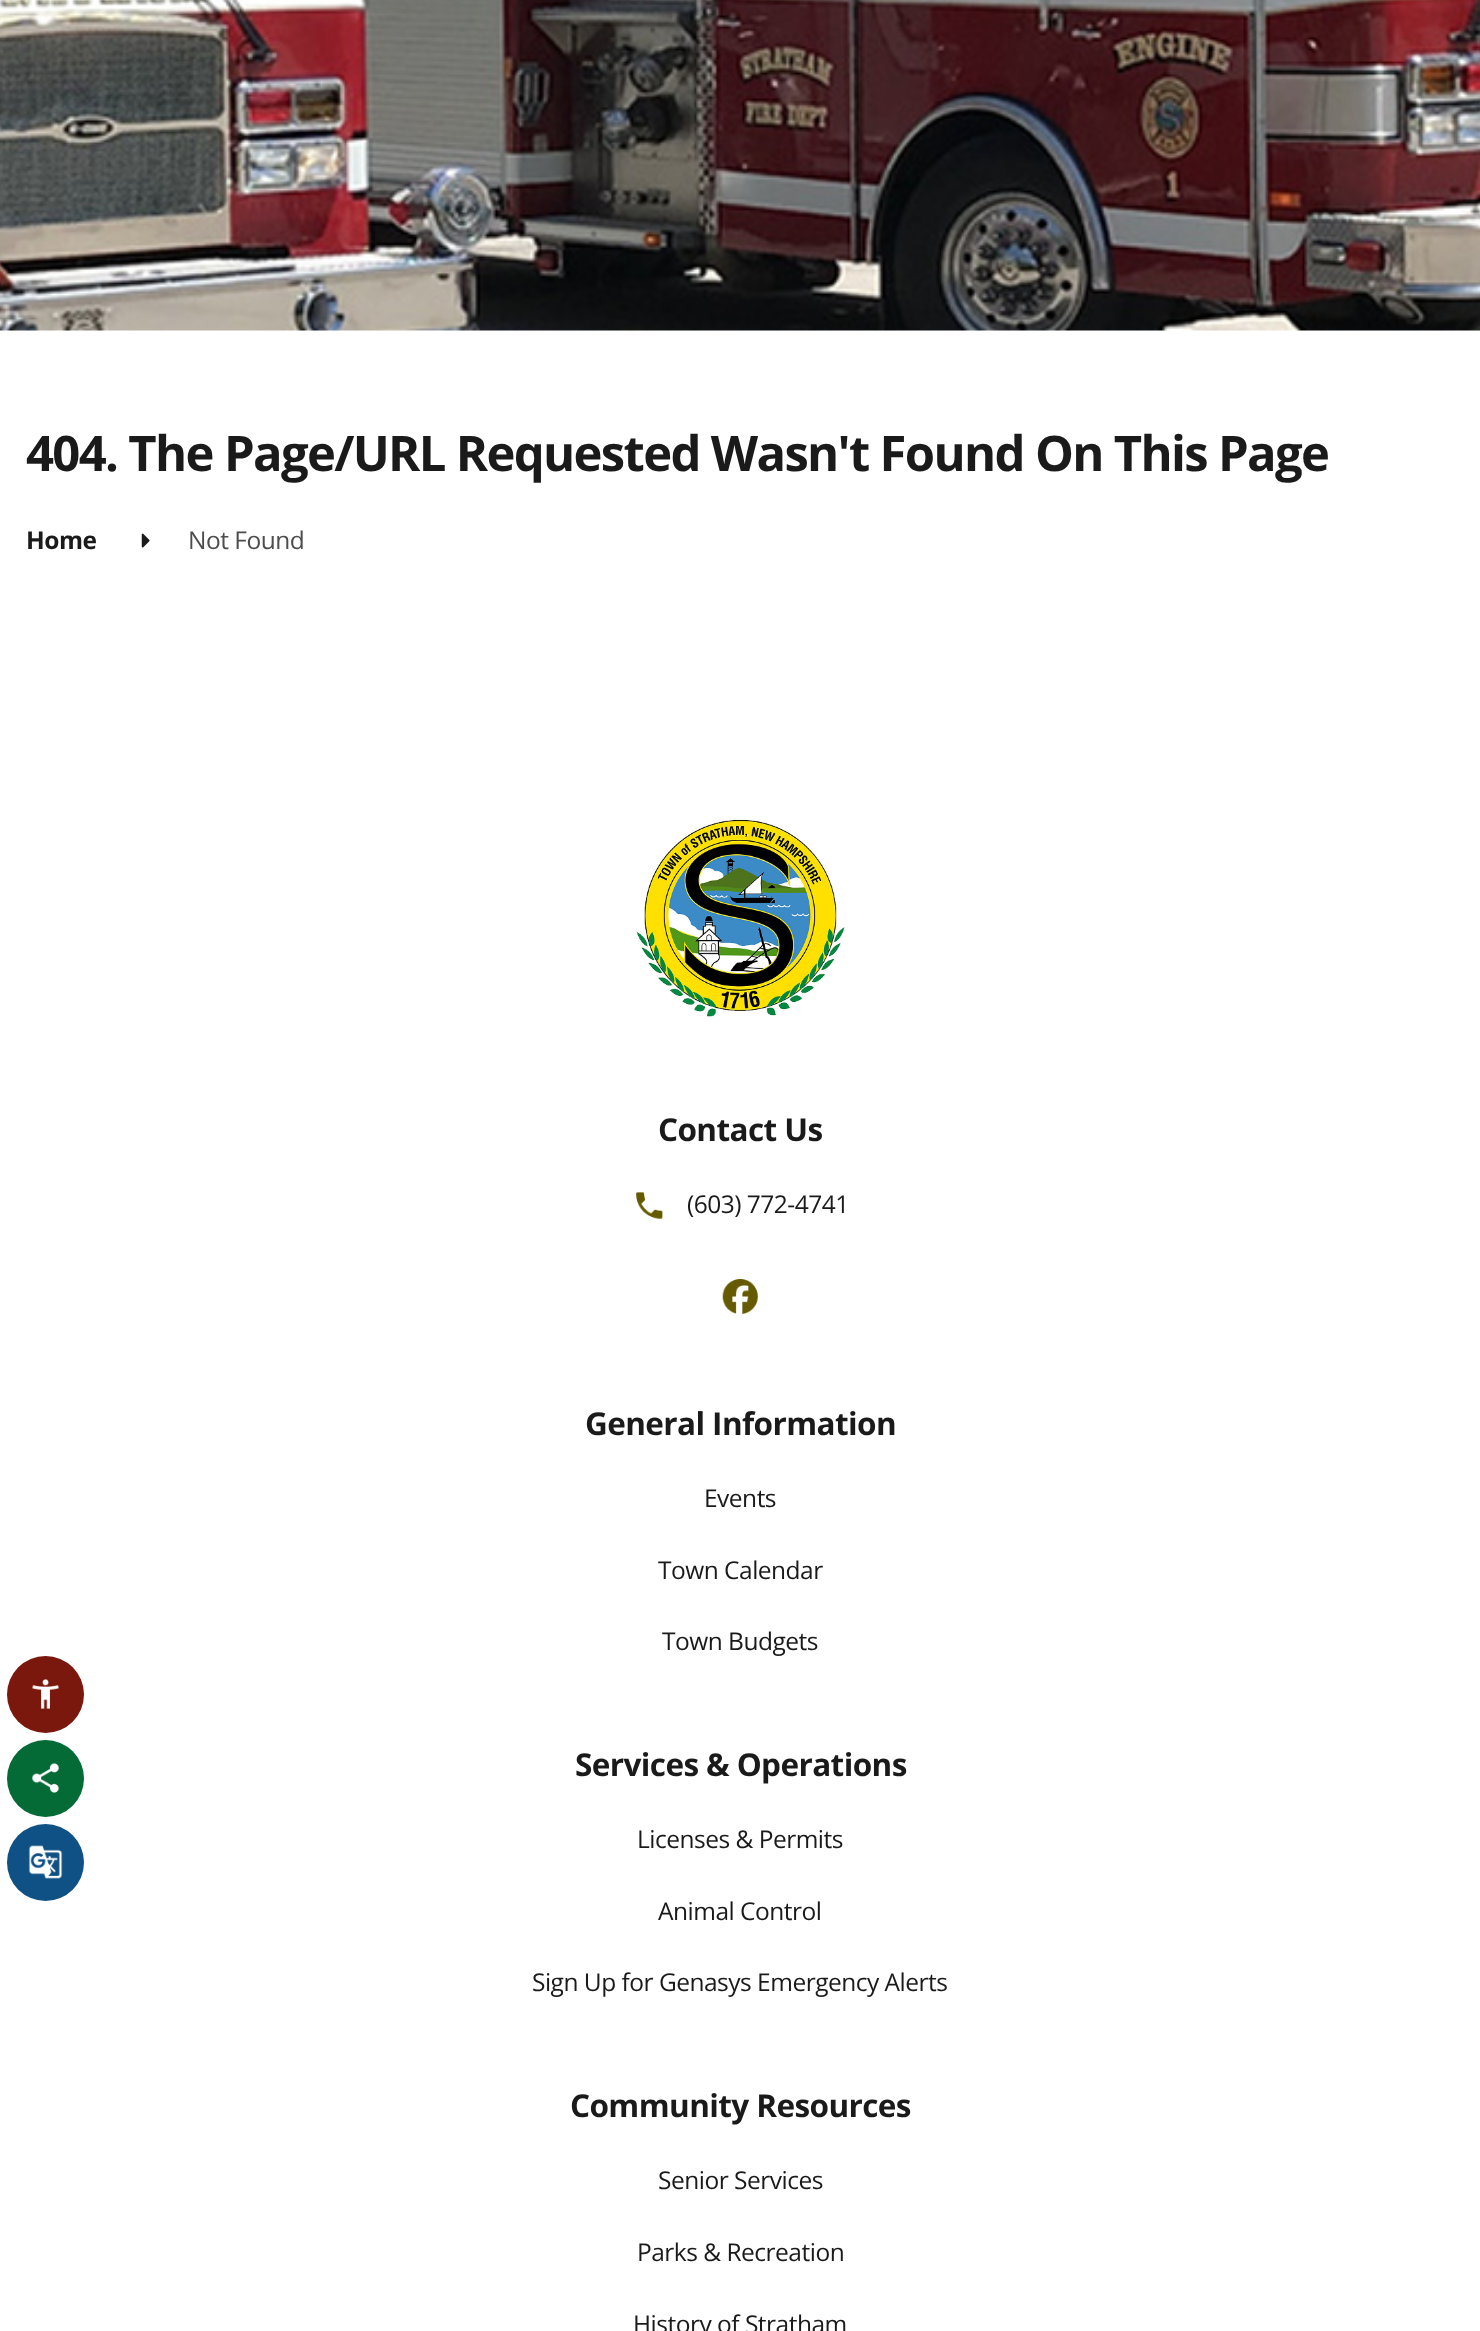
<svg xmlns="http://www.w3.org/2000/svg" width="1480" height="2331">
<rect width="100%" height="100%" fill="#fff"/>
<image x="0" y="0" width="1480" height="331" href="media/1.png"/>
<text x="26" y="471" style="font-family:Open Sans;font-size:49px;font-weight:bold;letter-spacing:-1.68px;fill:#1a1a1a">404. The Page/URL Requested Wasn't Found On This Page</text>
<text x="26" y="549" style="font-family:Open Sans;font-size:24.5px;font-weight:bold;letter-spacing:-0.5px;fill:#1a1a1a">Home</text>
<image x="141" y="533" width="9" height="15" href="media/2.png"/>
<text x="188" y="549" style="font-family:Open Sans;font-size:24.5px;letter-spacing:-0.5px;fill:#4d4d4d">Not Found</text>
<circle cx="45.5" cy="1694.5" r="38.5" fill="#7a180d"/>
<image x="32" y="1679" width="27" height="30" href="media/3.png"/>
<image x="636" y="819" width="209" height="198" href="media/4.png"/>
<text x="658" y="1141" style="font-family:Open Sans;font-size:31.5px;font-weight:bold;letter-spacing:-0.6px;fill:#1a1a1a">Contact Us</text>
<image x="636" y="1192" width="27" height="27" href="media/5.png"/>
<text x="687" y="1213" style="font-family:Open Sans;font-size:24.5px;letter-spacing:-0.5px;fill:#1a1a1a">(603) 772-4741</text>
<image x="722" y="1279" width="36" height="35" href="media/6.png"/>
<text x="585" y="1435" style="font-family:Open Sans;font-size:31.5px;font-weight:bold;letter-spacing:-0.6px;fill:#1a1a1a">General Information</text>
<text x="704" y="1507" style="font-family:Open Sans;font-size:24.5px;letter-spacing:-0.5px;fill:#1a1a1a">Events</text>
<text x="658" y="1579" style="font-family:Open Sans;font-size:24.5px;letter-spacing:-0.5px;fill:#1a1a1a">Town Calendar</text>
<text x="662" y="1650" style="font-family:Open Sans;font-size:24.5px;letter-spacing:-0.5px;fill:#1a1a1a">Town Budgets</text>
<text x="575" y="1776" style="font-family:Open Sans;font-size:31.5px;font-weight:bold;letter-spacing:-0.6px;fill:#1a1a1a">Services &amp; Operations</text>
<text x="637" y="1848" style="font-family:Open Sans;font-size:24.5px;letter-spacing:-0.5px;fill:#1a1a1a">Licenses &amp; Permits</text>
<text x="658" y="1920" style="font-family:Open Sans;font-size:24.5px;letter-spacing:-0.5px;fill:#1a1a1a">Animal Control</text>
<text x="532" y="1991" style="font-family:Open Sans;font-size:24.5px;letter-spacing:-0.5px;fill:#1a1a1a">Sign Up for Genasys Emergency Alerts</text>
<text x="570" y="2117" style="font-family:Open Sans;font-size:31.5px;font-weight:bold;letter-spacing:-0.6px;fill:#1a1a1a">Community Resources</text>
<text x="658" y="2189" style="font-family:Open Sans;font-size:24.5px;letter-spacing:-0.5px;fill:#1a1a1a">Senior Services</text>
<text x="637" y="2261" style="font-family:Open Sans;font-size:24.5px;letter-spacing:-0.5px;fill:#1a1a1a">Parks &amp; Recreation</text>
<text x="633" y="2333" style="font-family:Open Sans;font-size:24.5px;letter-spacing:-0.5px;fill:#1a1a1a">History of Stratham</text>
<circle cx="45.5" cy="1778.5" r="38.5" fill="#046a36"/>
<image x="32" y="1763" width="27" height="30" href="media/7.png"/>
<circle cx="45.5" cy="1862.5" r="38.5" fill="#0f5184"/>
<image x="28" y="1845" width="35" height="34" href="media/8.png"/>
</svg>
